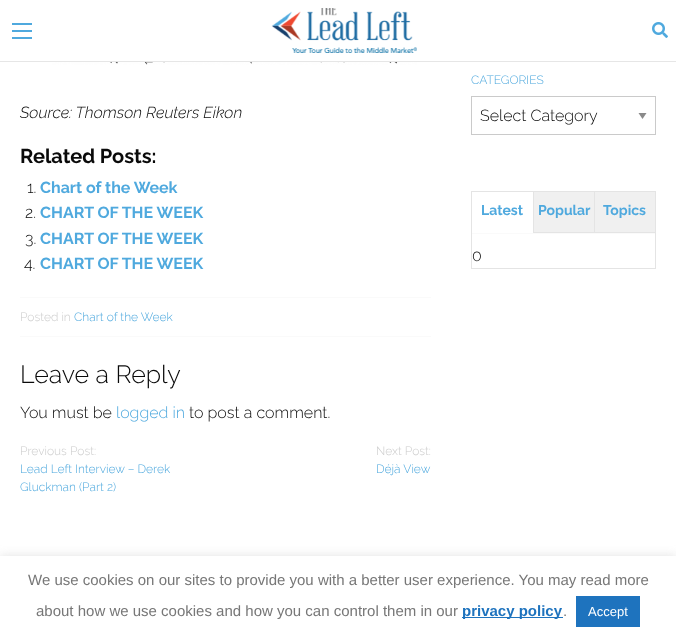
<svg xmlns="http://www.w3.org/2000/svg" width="676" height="639">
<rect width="100%" height="100%" fill="#fff"/>
<rect y="61" width="676" height="1" fill="#e6e6e6"/>
<rect x="12" y="37" width="20" height="2" fill="#4fa9de"/>
<rect x="12" y="30" width="20" height="2" fill="#4fa9de"/>
<rect x="12" y="23" width="20" height="2" fill="#4fa9de"/>
<image x="271" y="8" width="146" height="45" href="media/1.png"/>
<image x="652" y="22" width="16" height="16" href="media/2.png"/>
<image x="52" y="62" width="365" height="3" href="media/3.png"/>
<text x="20" y="118" style="font-family:Raleway;font-size:16px;font-weight:300;font-style:italic;fill:#0a0a0a">Source: Thomson Reuters Eikon</text>
<text x="20" y="163" style="font-family:Raleway;font-size:20px;font-weight:bold;fill:#0a0a0a">Related Posts:</text>
<text x="27" y="193" style="font-family:Raleway;font-size:16px;font-weight:300;fill:#0a0a0a">1.</text>
<text x="40" y="193" style="font-family:Raleway;font-size:16px;font-weight:bold;fill:#4fa9de">Chart of the Week</text>
<text x="25" y="218" style="font-family:Raleway;font-size:16px;font-weight:300;fill:#0a0a0a">2.</text>
<text x="40" y="218" style="font-family:Raleway;font-size:16px;font-weight:bold;fill:#4fa9de">CHART OF THE WEEK</text>
<text x="25" y="244" style="font-family:Raleway;font-size:16px;font-weight:300;fill:#0a0a0a">3.</text>
<text x="40" y="244" style="font-family:Raleway;font-size:16px;font-weight:bold;fill:#4fa9de">CHART OF THE WEEK</text>
<text x="24" y="269" style="font-family:Raleway;font-size:16px;font-weight:300;fill:#0a0a0a">4.</text>
<text x="40" y="269" style="font-family:Raleway;font-size:16px;font-weight:bold;fill:#4fa9de">CHART OF THE WEEK</text>
<rect x="20" y="297" width="411" height="1" fill="#fafafa"/>
<rect x="20" y="336" width="411" height="1" fill="#fafafa"/>
<text x="20" y="321" style="font-family:Raleway;font-size:12px;font-weight:300;fill:#ccc">Posted in</text>
<text x="74" y="321" style="font-family:Raleway;font-size:12px;font-weight:300;fill:#4fa9de">Chart of the Week</text>
<text x="20" y="383" style="font-family:Raleway;font-size:25px;font-weight:300;fill:#0a0a0a">Leave a Reply</text>
<text x="20" y="418" style="font-family:Raleway;font-size:16px;font-weight:300;fill:#0a0a0a">You must be</text>
<text x="116" y="418" style="font-family:Raleway;font-size:16px;font-weight:300;fill:#4fa9de">logged in</text>
<text x="189" y="418" style="font-family:Raleway;font-size:16px;font-weight:300;fill:#0a0a0a">to post a comment.</text>
<text x="20" y="455" style="font-family:Raleway;font-size:12px;font-weight:300;fill:#ccc">Previous Post:</text>
<text x="20" y="473" style="font-family:Raleway;font-size:12px;font-weight:300;fill:#4fa9de">Lead Left Interview – Derek</text>
<text x="20" y="491" style="font-family:Raleway;font-size:12px;font-weight:300;fill:#4fa9de">Gluckman (Part 2)</text>
<text x="376" y="455" style="font-family:Raleway;font-size:12px;font-weight:300;fill:#ccc">Next Post:</text>
<text x="376" y="473" style="font-family:Raleway;font-size:12px;font-weight:300;fill:#4fa9de">Déjà View</text>
<text x="471" y="84" style="font-family:Raleway;font-size:12px;font-weight:300;fill:#4fa9de">CATEGORIES</text>
<path d="M638.5 113h8l-4 6z" fill="#8a8a8a"/>
<rect x="471.5" y="96.5" width="184" height="38" fill="none" stroke="#cacaca"/>
<text x="480" y="121" style="font-family:Raleway;font-size:16px;font-weight:300;fill:#0a0a0a">Select Category</text>
<rect x="471.5" y="191.5" width="184" height="77" fill="none" stroke="#e4e4e4"/>
<rect x="472" y="233" width="183" height="1" fill="#fafafa"/>
<text x="481" y="215" style="font-family:Raleway;font-size:14px;font-weight:bold;fill:#4fa9de">Latest</text>
<rect x="534" y="192" width="60" height="40" fill="#f0f0f0"/>
<rect x="533" y="232" width="122" height="1" fill="#e4e4e4"/>
<rect x="533" y="192" width="1" height="41" fill="#e4e4e4"/>
<text x="538" y="215" style="font-family:Raleway;font-size:14px;font-weight:bold;fill:#4fa9de">Popular</text>
<rect x="595" y="192" width="60" height="40" fill="#f0f0f0"/>
<rect x="594" y="192" width="1" height="41" fill="#e4e4e4"/>
<text x="603" y="215" style="font-family:Raleway;font-size:14px;font-weight:bold;fill:#4fa9de">Topics</text>
<text x="472" y="261" style="font-family:Raleway;font-size:16px;font-weight:300;fill:#0a0a0a">0</text>
<rect y="555" width="676" height="83" fill="#acabab4d" filter="blur(5px)"/>
<rect y="556" width="676" height="83" fill="#fff"/>
<text x="28" y="585" style="font-family:Liberation Sans;font-size:15px;fill:#777">We use cookies on our sites to provide you with a better user experience. You may read more</text>
<text x="36" y="616" style="font-family:Liberation Sans;font-size:15px;fill:#777">about how we use cookies and how you can control them in our</text>
<rect x="462" y="617" width="101" height="1" fill="#1e73be"/>
<text x="462" y="616" style="font-family:Liberation Sans;font-size:15px;font-weight:bold;fill:#1e73be">privacy policy</text>
<text x="563" y="616" style="font-family:Liberation Sans;font-size:15px;fill:#777">.</text>
<rect x="576" y="596" width="64" height="31" fill="#1e73be"/>
<text x="588" y="616" style="font-family:Liberation Sans;font-size:13px;fill:#fff">Accept</text>
</svg>
